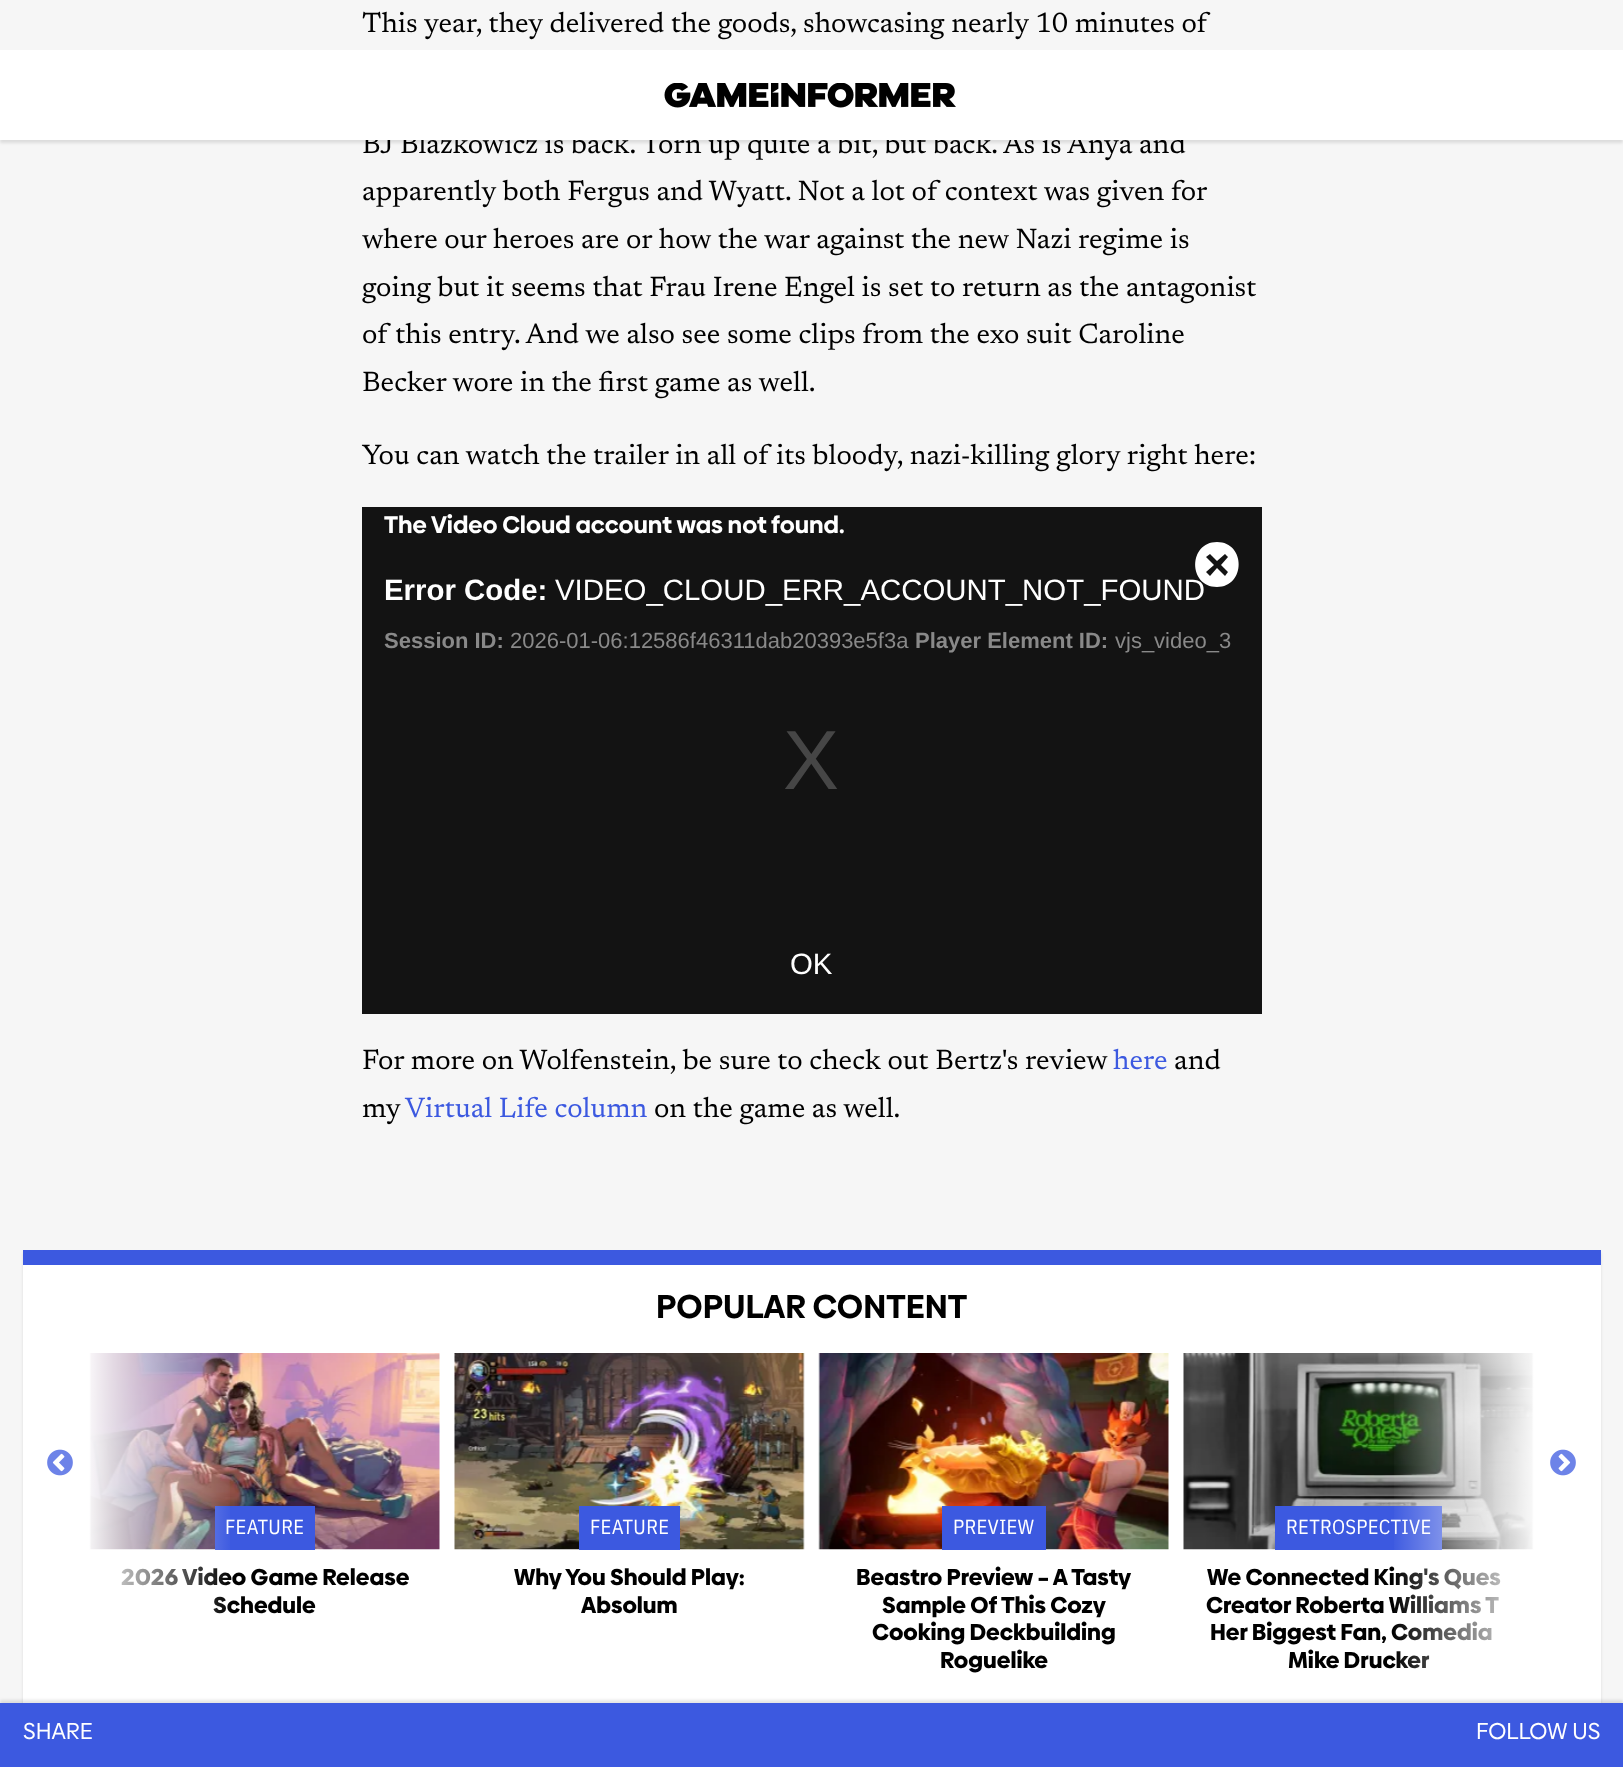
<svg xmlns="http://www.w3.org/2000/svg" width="1623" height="1767">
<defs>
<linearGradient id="g1" gradientUnits="userSpaceOnUse" x1="82" y1="1517" x2="233" y2="1517"><stop offset="0" stop-color="#fff"/><stop offset="1" stop-color="#fff" stop-opacity="0"/></linearGradient>
<linearGradient id="g2" gradientUnits="userSpaceOnUse" x1="1541" y1="1517" x2="1391" y2="1517"><stop offset="0" stop-color="#fff"/><stop offset="1" stop-color="#fff" stop-opacity="0"/></linearGradient>
</defs>
<rect width="100%" height="100%" fill="#f6f6f6"/>
<text x="362" y="32" style="font-family:Newsreader;font-size:28.05px;fill:#000">This year, they delivered the goods, showcasing nearly 10 minutes of</text>
<text x="362" y="153" style="font-family:Newsreader;font-size:28.05px;fill:#000">BJ Blazkowicz is back. Torn up quite a bit, but back. As is Anya and</text>
<text x="362" y="200" style="font-family:Newsreader;font-size:28.05px;fill:#000">apparently both Fergus and Wyatt. Not a lot of context was given for</text>
<text x="362" y="248" style="font-family:Newsreader;font-size:28.05px;fill:#000">where our heroes are or how the war against the new Nazi regime is</text>
<text x="362" y="296" style="font-family:Newsreader;font-size:28.05px;fill:#000">going but it seems that Frau Irene Engel is set to return as the antagonist</text>
<text x="362" y="343" style="font-family:Newsreader;font-size:28.05px;fill:#000">of this entry. And we also see some clips from the exo suit Caroline</text>
<text x="362" y="391" style="font-family:Newsreader;font-size:28.05px;fill:#000">Becker wore in the first game as well.</text>
<text x="362" y="464" style="font-family:Newsreader;font-size:28.05px;fill:#000">You can watch the trailer in all of its bloody, nazi-killing glory right here:</text>
<rect x="362" y="507" width="900" height="507" fill="#131313"/>
<text x="384" y="533" style="font-family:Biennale;font-size:24px;font-weight:bold;fill:#fff">The Video Cloud account was not found.</text>
<text x="384" y="600" style="font-family:Liberation Sans;font-size:29.4px;font-weight:bold;fill:#fff">Error Code:</text>
<text x="555" y="600" style="font-family:Liberation Sans;font-size:29.4px;fill:#fff">VIDEO_CLOUD_ERR_ACCOUNT_NOT_FOUND</text>
<text x="384" y="648" style="font-family:Liberation Sans;font-size:22px;font-weight:bold;fill:#898989">Session ID:</text>
<text x="510" y="648" style="font-family:Liberation Sans;font-size:22px;fill:#898989">2026-01-06:12586f46311dab20393e5f3a</text>
<text x="915" y="648" style="font-family:Liberation Sans;font-size:22px;font-weight:bold;fill:#898989">Player Element ID:</text>
<text x="1115" y="648" style="font-family:Liberation Sans;font-size:22px;fill:#898989">vjs_video_3</text>
<path d="M1217 542c-29 0-29 45 0 45c29 0 29-45 0-45zm11 30l-3 4l-8-8l-7 8l-4-4l8-7l-8-8l4-3l7 7l8-7l3 3l-7 8z" fill="#fff"/>
<text x="790" y="974" style="font-family:Liberation Sans;font-size:29.4px;fill:#fff">OK</text>
<text x="783" y="789" style="font-family:Liberation Sans;font-size:84px;fill:#464646">X</text>
<text x="362" y="1069" style="font-family:Newsreader;font-size:28.05px;fill:#000">For more on Wolfenstein, be sure to check out Bertz's review</text>
<text x="1113" y="1069" style="font-family:Newsreader;font-size:28.05px;fill:#3c59e0">here</text>
<text x="1174" y="1069" style="font-family:Newsreader;font-size:28.05px;fill:#000">and</text>
<text x="362" y="1117" style="font-family:Newsreader;font-size:28.05px;fill:#000">my</text>
<text x="405" y="1117" style="font-family:Newsreader;font-size:28.05px;fill:#3c59e0">Virtual Life column</text>
<text x="654" y="1117" style="font-family:Newsreader;font-size:28.05px;fill:#000">on the game as well.</text>
<rect x="23" y="1253" width="1578" height="454" fill="#0000001a" filter="blur(1.5px)"/>
<rect x="23" y="1265" width="1578" height="438" fill="#fff"/>
<rect x="23" y="1250" width="1578" height="15" fill="#3c59e0"/>
<text x="656" y="1318" style="font-family:Biennale;font-size:33.25px;font-weight:bold;fill:#000">POPULAR CONTENT</text>
<image x="47" y="1449" width="26" height="27" href="media/1.png"/>
<image x="89" y="1353" width="351" height="197" href="media/3.png"/>
<rect x="215" y="1506" width="100" height="44" fill="#3c59e0"/>
<text x="225" y="1534" style="font-family:IBM Plex Sans Condensed;font-size:20.5px;letter-spacing:0.25px;fill:#fff">FEATURE</text>
<text x="121" y="1585" style="font-family:Biennale;font-size:23px;font-weight:900;fill:#000">2026 Video Game Release</text>
<text x="213" y="1613" style="font-family:Biennale;font-size:23px;font-weight:900;fill:#000">Schedule</text>
<rect x="89" y="1353" width="141" height="261" fill="url(#g1)"/>
<image x="1183" y="1353" width="351" height="197" href="media/6.png"/>
<rect x="1275" y="1506" width="167" height="44" fill="#3c59e0"/>
<text x="1286" y="1534" style="font-family:IBM Plex Sans Condensed;font-size:20.5px;letter-spacing:0.25px;fill:#fff">RETROSPECTIVE</text>
<text x="1207" y="1585" style="font-family:Biennale;font-size:23px;font-weight:900;fill:#000">We Connected King's Ques</text>
<text x="1206" y="1613" style="font-family:Biennale;font-size:23px;font-weight:900;fill:#000">Creator Roberta Williams T</text>
<text x="1210" y="1640" style="font-family:Biennale;font-size:23px;font-weight:900;fill:#000">Her Biggest Fan, Comedia</text>
<text x="1288" y="1668" style="font-family:Biennale;font-size:23px;font-weight:900;fill:#000">Mike Drucker</text>
<rect x="1394" y="1353" width="140" height="316" fill="url(#g2)"/>
<image x="1550" y="1449" width="26" height="27" href="media/2.png"/>
<image x="454" y="1353" width="351" height="197" href="media/4.png"/>
<rect x="579" y="1506" width="101" height="44" fill="#3c59e0"/>
<text x="590" y="1534" style="font-family:IBM Plex Sans Condensed;font-size:20.5px;letter-spacing:0.25px;fill:#fff">FEATURE</text>
<text x="514" y="1585" style="font-family:Biennale;font-size:23px;font-weight:900;fill:#000">Why You Should Play:</text>
<text x="581" y="1613" style="font-family:Biennale;font-size:23px;font-weight:900;fill:#000">Absolum</text>
<image x="818" y="1353" width="351" height="197" href="media/5.png"/>
<rect x="942" y="1506" width="104" height="44" fill="#3c59e0"/>
<text x="953" y="1534" style="font-family:IBM Plex Sans Condensed;font-size:20.5px;letter-spacing:0.25px;fill:#fff">PREVIEW</text>
<text x="856" y="1585" style="font-family:Biennale;font-size:23px;font-weight:900;fill:#000">Beastro Preview – A Tasty</text>
<text x="882" y="1613" style="font-family:Biennale;font-size:23px;font-weight:900;fill:#000">Sample Of This Cozy</text>
<text x="872" y="1640" style="font-family:Biennale;font-size:23px;font-weight:900;fill:#000">Cooking Deckbuilding</text>
<text x="940" y="1668" style="font-family:Biennale;font-size:23px;font-weight:900;fill:#000">Roguelike</text>
<rect y="1700" width="1623" height="64" fill="#0000001a" filter="blur(1.5px)"/>
<rect y="1703" width="1623" height="64" fill="#3c59e0"/>
<text x="23" y="1739" style="font-family:Biennale;font-size:23px;fill:#fff">SHARE</text>
<text x="1476" y="1739" style="font-family:Biennale;font-size:23px;fill:#fff">FOLLOW US</text>
<rect y="53" width="1623" height="90" fill="#0000001a" filter="blur(1.5px)"/>
<rect y="50" width="1623" height="90" fill="#fff"/>
<image x="664" y="83" width="292" height="25" href="media/7.png"/>
</svg>
